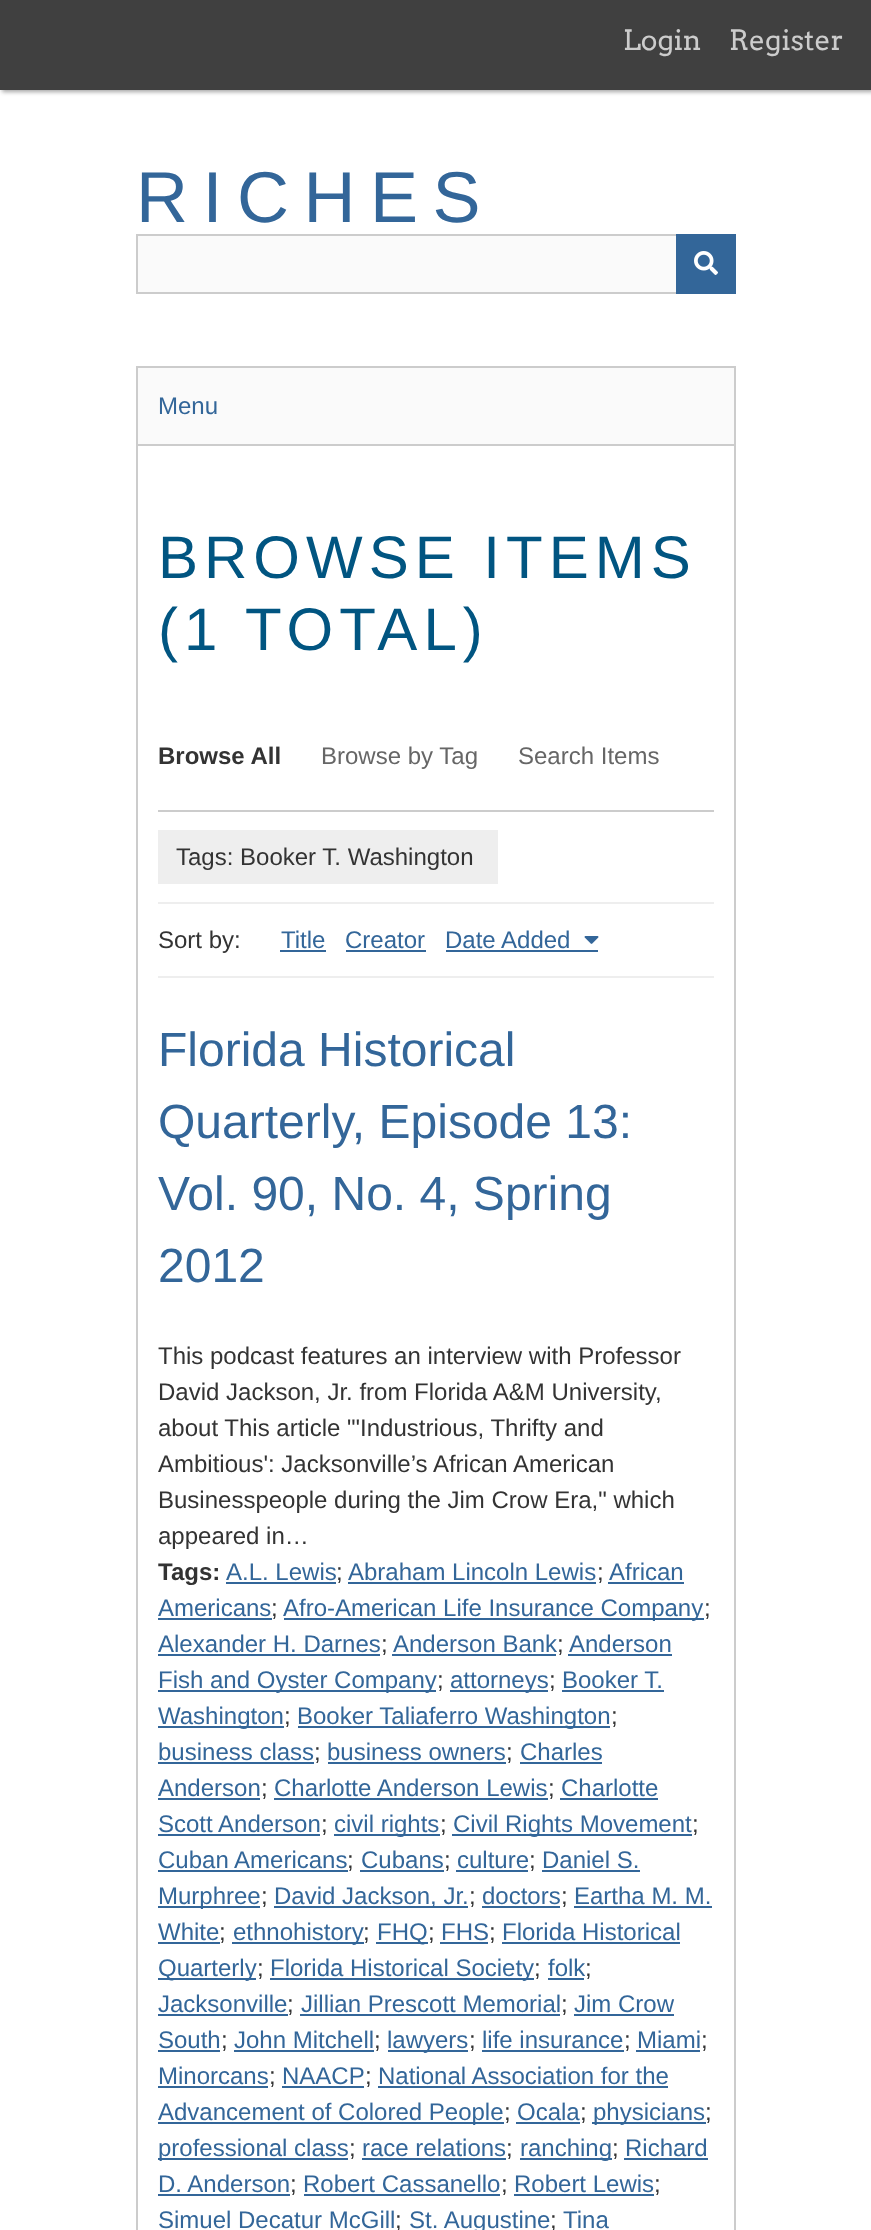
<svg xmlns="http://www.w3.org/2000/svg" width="871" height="2230">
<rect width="100%" height="100%" fill="#fff"/>
<rect x="2" y="2" width="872" height="90" fill="#00000059" filter="blur(2px)"/>
<rect width="871" height="90" fill="#404040"/>
<text x="623" y="50" style="font-family:Arvo;font-size:28px;fill:#ccc">Login</text>
<text x="729" y="50" style="font-family:Arvo;font-size:28px;fill:#ccc">Register</text>
<text x="136" y="222" style="font-family:Liberation Sans;font-size:72px;letter-spacing:14.5px;fill:#369">RICHES</text>
<rect x="138" y="236" width="538" height="56" fill="#fafafa"/>
<rect x="137" y="235" width="598" height="58" fill="none" stroke="#ccc" stroke-width="2"/>
<rect x="676" y="234" width="60" height="60" fill="#369"/>
<image x="694" y="251" width="24" height="24" href="media/1.png"/>
<rect x="138" y="368" width="596" height="76" fill="#fafafa"/>
<rect x="136" y="366" width="600" height="2" fill="#ccc"/>
<rect x="734" y="366" width="2" height="78" fill="#ccc"/>
<rect x="136" y="366" width="2" height="78" fill="#ccc"/>
<text x="158" y="414" style="font-family:Liberation Sans;font-size:24px;fill:#369">Menu</text>
<rect x="137" y="445" width="598" height="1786" fill="none" stroke="#ccc" stroke-width="2"/>
<text x="158" y="578" style="font-family:Liberation Sans;font-size:60px;letter-spacing:6px;fill:#015581">BROWSE ITEMS</text>
<text x="158" y="650" style="font-family:Liberation Sans;font-size:60px;letter-spacing:6px;fill:#015581">(1 TOTAL)</text>
<rect x="158" y="810" width="556" height="2" fill="#ccc"/>
<text x="158" y="764" style="font-family:Liberation Sans;font-size:24px;font-weight:bold;fill:#333">Browse All</text>
<text x="321" y="764" style="font-family:Liberation Sans;font-size:24px;fill:#666">Browse by Tag</text>
<text x="518" y="764" style="font-family:Liberation Sans;font-size:24px;fill:#666">Search Items</text>
<rect x="158" y="902" width="556" height="2" fill="#eee"/>
<rect x="158" y="830" width="340" height="54" fill="#eee"/>
<text x="176" y="865" style="font-family:Liberation Sans;font-size:24px;fill:#333">Tags: Booker T. Washington</text>
<text x="158" y="948" style="font-family:Liberation Sans;font-size:24px;fill:#333">Sort by:</text>
<text x="281" y="948" style="font-family:Liberation Sans;font-size:24px;fill:#369">Title</text>
<rect x="280" y="950" width="46" height="2" fill="#369"/>
<text x="345" y="948" style="font-family:Liberation Sans;font-size:24px;fill:#369">Creator</text>
<rect x="346" y="950" width="80" height="2" fill="#369"/>
<text x="445" y="948" style="font-family:Liberation Sans;font-size:24px;fill:#369">Date Added</text>
<rect x="446" y="950" width="152" height="2" fill="#369"/>
<image x="584" y="936" width="15" height="8" href="media/2.png"/>
<rect x="158" y="976" width="556" height="2" fill="#eee"/>
<text x="158" y="1066" style="font-family:Liberation Sans;font-size:48px;fill:#369">Florida Historical</text>
<text x="158" y="1138" style="font-family:Liberation Sans;font-size:48px;fill:#369">Quarterly, Episode 13:</text>
<text x="158" y="1210" style="font-family:Liberation Sans;font-size:48px;fill:#369">Vol. 90, No. 4, Spring</text>
<text x="158" y="1282" style="font-family:Liberation Sans;font-size:48px;fill:#369">2012</text>
<text x="158" y="1364" style="font-family:Liberation Sans;font-size:24px;fill:#333">This podcast features an interview with Professor</text>
<text x="158" y="1400" style="font-family:Liberation Sans;font-size:24px;fill:#333">David Jackson, Jr. from Florida A&amp;M University,</text>
<text x="158" y="1436" style="font-family:Liberation Sans;font-size:24px;fill:#333">about This article "'Industrious, Thrifty and</text>
<text x="158" y="1472" style="font-family:Liberation Sans;font-size:24px;fill:#333">Ambitious': Jacksonville’s African American</text>
<text x="158" y="1508" style="font-family:Liberation Sans;font-size:24px;fill:#333">Businesspeople during the Jim Crow Era," which</text>
<text x="158" y="1544" style="font-family:Liberation Sans;font-size:24px;fill:#333">appeared in…</text>
<text x="158" y="1580" style="font-family:Liberation Sans;font-size:24px;font-weight:bold;fill:#333">Tags:</text>
<text x="226" y="1580" style="font-family:Liberation Sans;font-size:24px;fill:#369">A.L. Lewis</text>
<rect x="226" y="1582" width="110" height="2" fill="#369"/>
<text x="336" y="1580" style="font-family:Liberation Sans;font-size:24px;fill:#333">;</text>
<text x="348" y="1580" style="font-family:Liberation Sans;font-size:24px;fill:#369">Abraham Lincoln Lewis</text>
<rect x="348" y="1582" width="248" height="2" fill="#369"/>
<text x="597" y="1580" style="font-family:Liberation Sans;font-size:24px;fill:#333">;</text>
<text x="609" y="1580" style="font-family:Liberation Sans;font-size:24px;fill:#369">African</text>
<rect x="608" y="1582" width="76" height="2" fill="#369"/>
<text x="158" y="1616" style="font-family:Liberation Sans;font-size:24px;fill:#369">Americans</text>
<rect x="158" y="1618" width="114" height="2" fill="#369"/>
<text x="271" y="1616" style="font-family:Liberation Sans;font-size:24px;fill:#333">;</text>
<rect x="284" y="1618" width="420" height="2" fill="#369"/>
<text x="283" y="1616" style="font-family:Liberation Sans;font-size:24px;fill:#369">Afro-American Life Insurance Company</text>
<text x="704" y="1616" style="font-family:Liberation Sans;font-size:24px;fill:#333">;</text>
<text x="158" y="1652" style="font-family:Liberation Sans;font-size:24px;fill:#369">Alexander H. Darnes</text>
<rect x="158" y="1654" width="222" height="2" fill="#369"/>
<text x="381" y="1652" style="font-family:Liberation Sans;font-size:24px;fill:#333">;</text>
<text x="393" y="1652" style="font-family:Liberation Sans;font-size:24px;fill:#369">Anderson Bank</text>
<rect x="392" y="1654" width="164" height="2" fill="#369"/>
<text x="557" y="1652" style="font-family:Liberation Sans;font-size:24px;fill:#333">;</text>
<text x="569" y="1652" style="font-family:Liberation Sans;font-size:24px;fill:#369">Anderson</text>
<rect x="568" y="1654" width="104" height="2" fill="#369"/>
<rect x="158" y="1690" width="278" height="2" fill="#369"/>
<text x="158" y="1688" style="font-family:Liberation Sans;font-size:24px;fill:#369">Fish and Oyster Company</text>
<text x="437" y="1688" style="font-family:Liberation Sans;font-size:24px;fill:#333">;</text>
<rect x="450" y="1690" width="98" height="2" fill="#369"/>
<text x="450" y="1688" style="font-family:Liberation Sans;font-size:24px;fill:#369">attorneys</text>
<text x="549" y="1688" style="font-family:Liberation Sans;font-size:24px;fill:#333">;</text>
<text x="562" y="1688" style="font-family:Liberation Sans;font-size:24px;fill:#369">Booker T.</text>
<rect x="562" y="1690" width="102" height="2" fill="#369"/>
<rect x="158" y="1726" width="126" height="2" fill="#369"/>
<text x="158" y="1724" style="font-family:Liberation Sans;font-size:24px;fill:#369">Washington</text>
<text x="284" y="1724" style="font-family:Liberation Sans;font-size:24px;fill:#333">;</text>
<rect x="298" y="1726" width="312" height="2" fill="#369"/>
<text x="297" y="1724" style="font-family:Liberation Sans;font-size:24px;fill:#369">Booker Taliaferro Washington</text>
<text x="611" y="1724" style="font-family:Liberation Sans;font-size:24px;fill:#333">;</text>
<text x="158" y="1760" style="font-family:Liberation Sans;font-size:24px;fill:#369">business class</text>
<rect x="158" y="1762" width="156" height="2" fill="#369"/>
<text x="314" y="1760" style="font-family:Liberation Sans;font-size:24px;fill:#333">;</text>
<text x="327" y="1760" style="font-family:Liberation Sans;font-size:24px;fill:#369">business owners</text>
<rect x="328" y="1762" width="178" height="2" fill="#369"/>
<text x="506" y="1760" style="font-family:Liberation Sans;font-size:24px;fill:#333">;</text>
<text x="520" y="1760" style="font-family:Liberation Sans;font-size:24px;fill:#369">Charles</text>
<rect x="520" y="1762" width="82" height="2" fill="#369"/>
<text x="158" y="1796" style="font-family:Liberation Sans;font-size:24px;fill:#369">Anderson</text>
<rect x="158" y="1798" width="102" height="2" fill="#369"/>
<text x="261" y="1796" style="font-family:Liberation Sans;font-size:24px;fill:#333">;</text>
<text x="274" y="1796" style="font-family:Liberation Sans;font-size:24px;fill:#369">Charlotte Anderson Lewis</text>
<rect x="274" y="1798" width="274" height="2" fill="#369"/>
<text x="548" y="1796" style="font-family:Liberation Sans;font-size:24px;fill:#333">;</text>
<text x="561" y="1796" style="font-family:Liberation Sans;font-size:24px;fill:#369">Charlotte</text>
<rect x="560" y="1798" width="98" height="2" fill="#369"/>
<text x="158" y="1832" style="font-family:Liberation Sans;font-size:24px;fill:#369">Scott Anderson</text>
<rect x="158" y="1834" width="162" height="2" fill="#369"/>
<text x="321" y="1832" style="font-family:Liberation Sans;font-size:24px;fill:#333">;</text>
<rect x="334" y="1834" width="106" height="2" fill="#369"/>
<text x="334" y="1832" style="font-family:Liberation Sans;font-size:24px;fill:#369">civil rights</text>
<text x="440" y="1832" style="font-family:Liberation Sans;font-size:24px;fill:#333">;</text>
<rect x="452" y="1834" width="240" height="2" fill="#369"/>
<text x="453" y="1832" style="font-family:Liberation Sans;font-size:24px;fill:#369">Civil Rights Movement</text>
<text x="692" y="1832" style="font-family:Liberation Sans;font-size:24px;fill:#333">;</text>
<text x="158" y="1868" style="font-family:Liberation Sans;font-size:24px;fill:#369">Cuban Americans</text>
<rect x="158" y="1870" width="190" height="2" fill="#369"/>
<text x="347" y="1868" style="font-family:Liberation Sans;font-size:24px;fill:#333">;</text>
<text x="361" y="1868" style="font-family:Liberation Sans;font-size:24px;fill:#369">Cubans</text>
<rect x="360" y="1870" width="84" height="2" fill="#369"/>
<text x="444" y="1868" style="font-family:Liberation Sans;font-size:24px;fill:#333">;</text>
<text x="457" y="1868" style="font-family:Liberation Sans;font-size:24px;fill:#369">culture</text>
<rect x="456" y="1870" width="72" height="2" fill="#369"/>
<text x="529" y="1868" style="font-family:Liberation Sans;font-size:24px;fill:#333">;</text>
<text x="542" y="1868" style="font-family:Liberation Sans;font-size:24px;fill:#369">Daniel S.</text>
<rect x="542" y="1870" width="98" height="2" fill="#369"/>
<rect x="158" y="1906" width="102" height="2" fill="#369"/>
<text x="158" y="1904" style="font-family:Liberation Sans;font-size:24px;fill:#369">Murphree</text>
<text x="261" y="1904" style="font-family:Liberation Sans;font-size:24px;fill:#333">;</text>
<rect x="274" y="1906" width="194" height="2" fill="#369"/>
<text x="274" y="1904" style="font-family:Liberation Sans;font-size:24px;fill:#369">David Jackson, Jr.</text>
<text x="469" y="1904" style="font-family:Liberation Sans;font-size:24px;fill:#333">;</text>
<text x="482" y="1904" style="font-family:Liberation Sans;font-size:24px;fill:#369">doctors</text>
<rect x="482" y="1906" width="78" height="2" fill="#369"/>
<text x="561" y="1904" style="font-family:Liberation Sans;font-size:24px;fill:#333">;</text>
<text x="574" y="1904" style="font-family:Liberation Sans;font-size:24px;fill:#369">Eartha M. M.</text>
<rect x="574" y="1906" width="138" height="2" fill="#369"/>
<text x="158" y="1940" style="font-family:Liberation Sans;font-size:24px;fill:#369">White</text>
<rect x="158" y="1942" width="62" height="2" fill="#369"/>
<text x="219" y="1940" style="font-family:Liberation Sans;font-size:24px;fill:#333">;</text>
<rect x="232" y="1942" width="132" height="2" fill="#369"/>
<text x="233" y="1940" style="font-family:Liberation Sans;font-size:24px;fill:#369">ethnohistory</text>
<text x="363" y="1940" style="font-family:Liberation Sans;font-size:24px;fill:#333">;</text>
<rect x="376" y="1942" width="52" height="2" fill="#369"/>
<text x="377" y="1940" style="font-family:Liberation Sans;font-size:24px;fill:#369">FHQ</text>
<text x="428" y="1940" style="font-family:Liberation Sans;font-size:24px;fill:#333">;</text>
<text x="441" y="1940" style="font-family:Liberation Sans;font-size:24px;fill:#369">FHS</text>
<rect x="440" y="1942" width="48" height="2" fill="#369"/>
<text x="489" y="1940" style="font-family:Liberation Sans;font-size:24px;fill:#333">;</text>
<text x="502" y="1940" style="font-family:Liberation Sans;font-size:24px;fill:#369">Florida Historical</text>
<rect x="502" y="1942" width="178" height="2" fill="#369"/>
<rect x="158" y="1978" width="98" height="2" fill="#369"/>
<text x="158" y="1976" style="font-family:Liberation Sans;font-size:24px;fill:#369">Quarterly</text>
<text x="257" y="1976" style="font-family:Liberation Sans;font-size:24px;fill:#333">;</text>
<rect x="270" y="1978" width="264" height="2" fill="#369"/>
<text x="270" y="1976" style="font-family:Liberation Sans;font-size:24px;fill:#369">Florida Historical Society</text>
<text x="534" y="1976" style="font-family:Liberation Sans;font-size:24px;fill:#333">;</text>
<text x="548" y="1976" style="font-family:Liberation Sans;font-size:24px;fill:#369">folk</text>
<rect x="548" y="1978" width="36" height="2" fill="#369"/>
<text x="585" y="1976" style="font-family:Liberation Sans;font-size:24px;fill:#333">;</text>
<text x="158" y="2012" style="font-family:Liberation Sans;font-size:24px;fill:#369">Jacksonville</text>
<rect x="158" y="2014" width="130" height="2" fill="#369"/>
<text x="287" y="2012" style="font-family:Liberation Sans;font-size:24px;fill:#333">;</text>
<text x="301" y="2012" style="font-family:Liberation Sans;font-size:24px;fill:#369">Jillian Prescott Memorial</text>
<rect x="300" y="2014" width="260" height="2" fill="#369"/>
<text x="561" y="2012" style="font-family:Liberation Sans;font-size:24px;fill:#333">;</text>
<text x="574" y="2012" style="font-family:Liberation Sans;font-size:24px;fill:#369">Jim Crow</text>
<rect x="574" y="2014" width="100" height="2" fill="#369"/>
<text x="158" y="2048" style="font-family:Liberation Sans;font-size:24px;fill:#369">South</text>
<rect x="158" y="2050" width="62" height="2" fill="#369"/>
<text x="221" y="2048" style="font-family:Liberation Sans;font-size:24px;fill:#333">;</text>
<text x="234" y="2048" style="font-family:Liberation Sans;font-size:24px;fill:#369">John Mitchell</text>
<rect x="234" y="2050" width="140" height="2" fill="#369"/>
<text x="374" y="2048" style="font-family:Liberation Sans;font-size:24px;fill:#333">;</text>
<rect x="388" y="2050" width="80" height="2" fill="#369"/>
<text x="387" y="2048" style="font-family:Liberation Sans;font-size:24px;fill:#369">lawyers</text>
<text x="469" y="2048" style="font-family:Liberation Sans;font-size:24px;fill:#333">;</text>
<text x="482" y="2048" style="font-family:Liberation Sans;font-size:24px;fill:#369">life insurance</text>
<rect x="482" y="2050" width="142" height="2" fill="#369"/>
<text x="624" y="2048" style="font-family:Liberation Sans;font-size:24px;fill:#333">;</text>
<text x="637" y="2048" style="font-family:Liberation Sans;font-size:24px;fill:#369">Miami</text>
<rect x="636" y="2050" width="64" height="2" fill="#369"/>
<text x="701" y="2048" style="font-family:Liberation Sans;font-size:24px;fill:#333">;</text>
<text x="158" y="2084" style="font-family:Liberation Sans;font-size:24px;fill:#369">Minorcans</text>
<rect x="158" y="2086" width="110" height="2" fill="#369"/>
<text x="269" y="2084" style="font-family:Liberation Sans;font-size:24px;fill:#333">;</text>
<text x="282" y="2084" style="font-family:Liberation Sans;font-size:24px;fill:#369">NAACP</text>
<rect x="282" y="2086" width="82" height="2" fill="#369"/>
<text x="365" y="2084" style="font-family:Liberation Sans;font-size:24px;fill:#333">;</text>
<text x="378" y="2084" style="font-family:Liberation Sans;font-size:24px;fill:#369">National Association for the</text>
<rect x="378" y="2086" width="290" height="2" fill="#369"/>
<rect x="158" y="2122" width="346" height="2" fill="#369"/>
<text x="158" y="2120" style="font-family:Liberation Sans;font-size:24px;fill:#369">Advancement of Colored People</text>
<text x="504" y="2120" style="font-family:Liberation Sans;font-size:24px;fill:#333">;</text>
<text x="517" y="2120" style="font-family:Liberation Sans;font-size:24px;fill:#369">Ocala</text>
<rect x="516" y="2122" width="64" height="2" fill="#369"/>
<text x="580" y="2120" style="font-family:Liberation Sans;font-size:24px;fill:#333">;</text>
<rect x="592" y="2122" width="114" height="2" fill="#369"/>
<text x="593" y="2120" style="font-family:Liberation Sans;font-size:24px;fill:#369">physicians</text>
<text x="705" y="2120" style="font-family:Liberation Sans;font-size:24px;fill:#333">;</text>
<rect x="158" y="2158" width="190" height="2" fill="#369"/>
<text x="158" y="2156" style="font-family:Liberation Sans;font-size:24px;fill:#369">professional class</text>
<text x="349" y="2156" style="font-family:Liberation Sans;font-size:24px;fill:#333">;</text>
<text x="362" y="2156" style="font-family:Liberation Sans;font-size:24px;fill:#369">race relations</text>
<rect x="362" y="2158" width="144" height="2" fill="#369"/>
<text x="506" y="2156" style="font-family:Liberation Sans;font-size:24px;fill:#333">;</text>
<rect x="520" y="2158" width="92" height="2" fill="#369"/>
<text x="520" y="2156" style="font-family:Liberation Sans;font-size:24px;fill:#369">ranching</text>
<text x="612" y="2156" style="font-family:Liberation Sans;font-size:24px;fill:#333">;</text>
<text x="625" y="2156" style="font-family:Liberation Sans;font-size:24px;fill:#369">Richard</text>
<rect x="624" y="2158" width="84" height="2" fill="#369"/>
<text x="158" y="2192" style="font-family:Liberation Sans;font-size:24px;fill:#369">D. Anderson</text>
<rect x="158" y="2194" width="132" height="2" fill="#369"/>
<text x="290" y="2192" style="font-family:Liberation Sans;font-size:24px;fill:#333">;</text>
<text x="303" y="2192" style="font-family:Liberation Sans;font-size:24px;fill:#369">Robert Cassanello</text>
<rect x="304" y="2194" width="196" height="2" fill="#369"/>
<text x="501" y="2192" style="font-family:Liberation Sans;font-size:24px;fill:#333">;</text>
<text x="514" y="2192" style="font-family:Liberation Sans;font-size:24px;fill:#369">Robert Lewis</text>
<rect x="514" y="2194" width="140" height="2" fill="#369"/>
<text x="654" y="2192" style="font-family:Liberation Sans;font-size:24px;fill:#333">;</text>
<text x="158" y="2228" style="font-family:Liberation Sans;font-size:24px;fill:#369">Simuel Decatur McGill</text>
<text x="395" y="2228" style="font-family:Liberation Sans;font-size:24px;fill:#333">;</text>
<text x="409" y="2228" style="font-family:Liberation Sans;font-size:24px;fill:#369">St. Augustine</text>
<text x="550" y="2228" style="font-family:Liberation Sans;font-size:24px;fill:#333">;</text>
<text x="563" y="2228" style="font-family:Liberation Sans;font-size:24px;fill:#369">Tina</text>
</svg>
